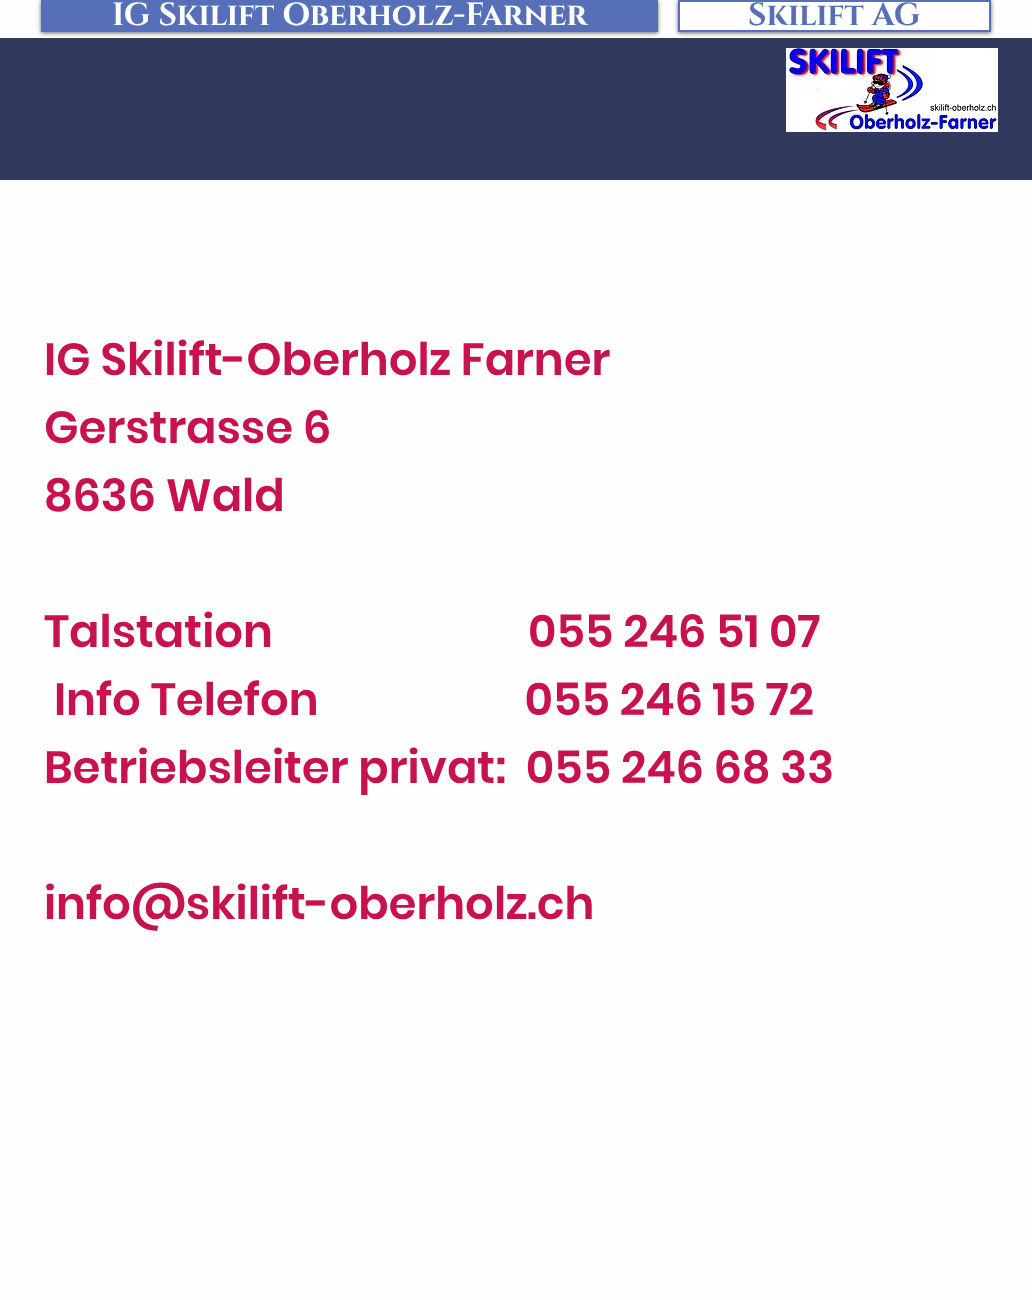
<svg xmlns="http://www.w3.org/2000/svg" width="1032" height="1300">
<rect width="100%" height="100%" fill="#fffefe"/>
<rect y="38" width="1032" height="142" fill="#2f3a5e"/>
<rect x="41" y="1" width="617" height="32" fill="#00000099" filter="blur(2px)"/>
<rect x="41" width="617" height="32" fill="#566fb8"/>
<text x="112" y="25" style="font-family:Cinzel;font-size:32px;font-weight:bold;fill:#fff">IG Skilift Oberholz-Farner</text>
<rect x="678" y="1" width="313" height="32" fill="#00000099" filter="blur(2px)"/>
<rect x="679" y="1" width="311" height="30" fill="#fff" stroke="#566fb8" stroke-width="2"/>
<text x="748" y="25" style="font-family:Cinzel;font-size:32px;font-weight:bold;fill:#566fb8">Skilift AG</text>
<image x="786" y="48" width="212" height="84" href="media/1.png"/>
<text x="44" y="375" style="font-family:Poppins;font-size:45px;font-weight:600;fill:#c7124f">IG Skilift-Oberholz Farner</text>
<text x="44" y="443" style="font-family:Poppins;font-size:45px;font-weight:600;fill:#c7124f">Gerstrasse 6</text>
<text x="44" y="511" style="font-family:Poppins;font-size:45px;font-weight:600;fill:#c7124f">8636 Wald</text>
<text x="44" y="647" style="font-family:Poppins;font-size:45px;font-weight:600;fill:#c7124f" xml:space="preserve">Talstation                          055 246 51 07</text>
<text x="54" y="715" style="font-family:Poppins;font-size:45px;font-weight:600;fill:#c7124f" xml:space="preserve">Info Telefon                     055 246 15 72</text>
<text x="44" y="783" style="font-family:Poppins;font-size:45px;font-weight:600;fill:#c7124f" xml:space="preserve">Betriebsleiter privat:  055 246 68 33</text>
<text x="44" y="919" style="font-family:Poppins;font-size:45px;font-weight:600;fill:#c7124f">info@skilift-oberholz.ch</text>
</svg>
